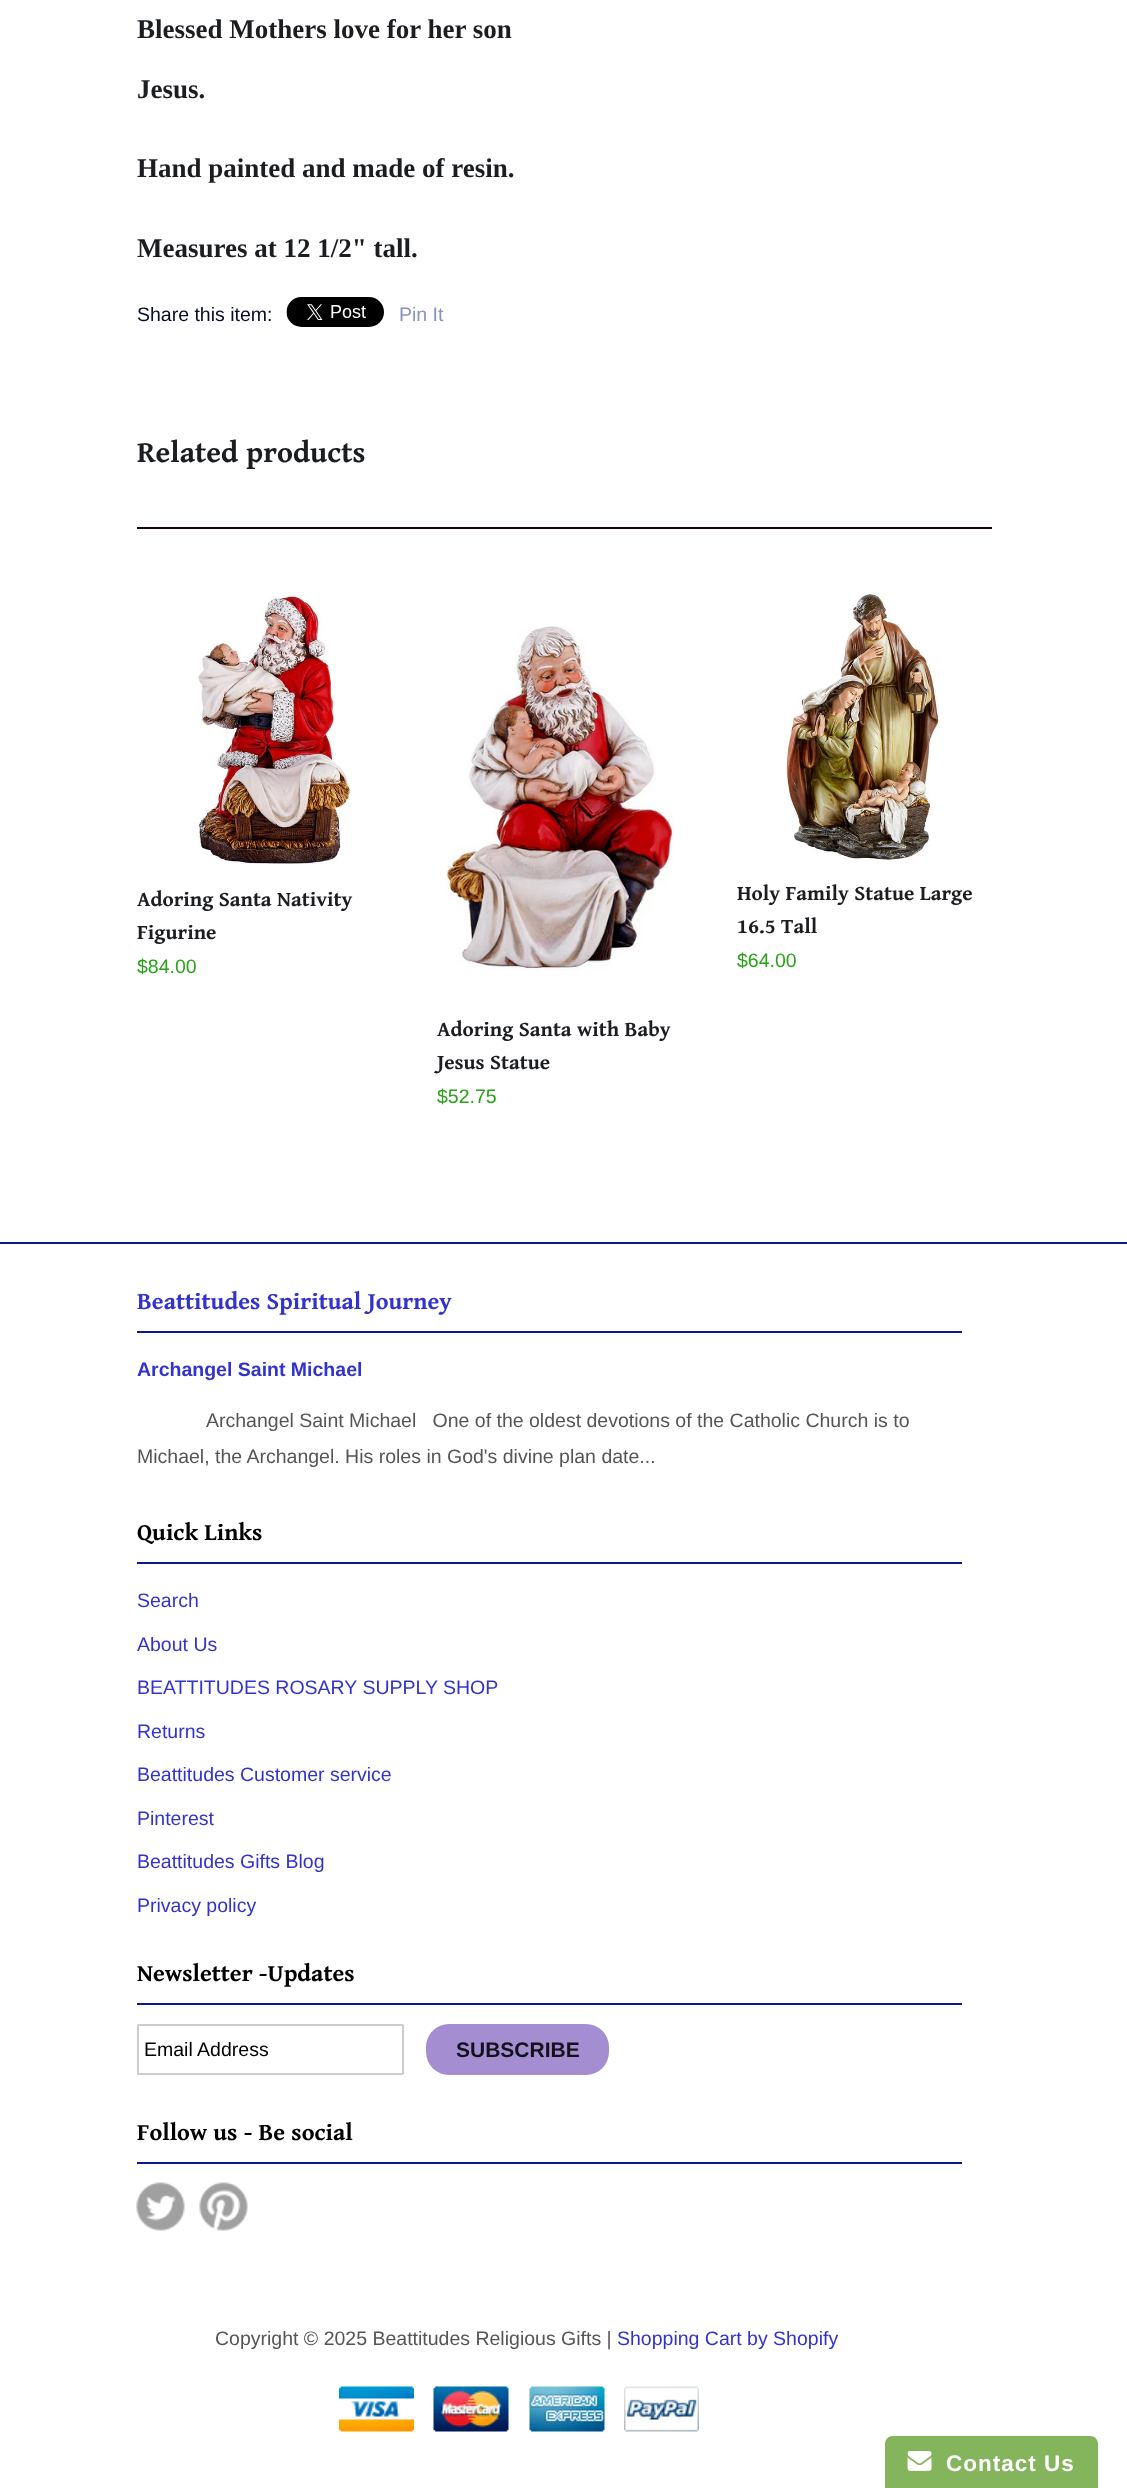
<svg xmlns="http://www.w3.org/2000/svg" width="1127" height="2488">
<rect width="100%" height="100%" fill="#fff"/>
<text x="137" y="38" style="font-family:Liberation Serif;font-size:27px;font-weight:bold;fill:#1b1d21">Blessed Mothers love for her son</text>
<text x="137" y="98" style="font-family:Liberation Serif;font-size:27px;font-weight:bold;fill:#1b1d21">Jesus.</text>
<text x="137" y="177" style="font-family:Liberation Serif;font-size:27px;font-weight:bold;fill:#1b1d21">Hand painted and made of resin.</text>
<text x="137" y="257" style="font-family:Liberation Serif;font-size:27px;font-weight:bold;fill:#1b1d21">Measures at 12 1/2" tall.</text>
<text x="137" y="321" style="font-family:Liberation Sans;font-size:19.5px;fill:#050a31">Share this item:</text>
<image x="286" y="297" width="98" height="30" href="media/1.png"/>
<text x="399" y="321" style="font-family:Liberation Sans;font-size:19.5px;fill:#8a92bf">Pin It</text>
<rect x="137" y="527" width="855" height="2" fill="#170303"/>
<text x="137" y="462" style="font-family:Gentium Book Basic;font-size:30px;font-weight:bold;fill:#1b1d21">Related products</text>
<image x="197" y="595" width="155" height="269" href="media/2.png"/>
<text x="137" y="906" style="font-family:Gentium Book Basic;font-size:21px;font-weight:bold;fill:#1b1d21">Adoring Santa Nativity</text>
<text x="137" y="939" style="font-family:Gentium Book Basic;font-size:21px;font-weight:bold;fill:#1b1d21">Figurine</text>
<text x="137" y="973" style="font-family:Liberation Sans;font-size:19.5px;fill:#29a218">$84.00</text>
<image x="786" y="593" width="153" height="269" href="media/3.png"/>
<text x="737" y="900" style="font-family:Gentium Book Basic;font-size:21px;font-weight:bold;fill:#1b1d21">Holy Family Statue Large</text>
<text x="737" y="933" style="font-family:Gentium Book Basic;font-size:21px;font-weight:bold;fill:#1b1d21">16.5 Tall</text>
<text x="737" y="967" style="font-family:Liberation Sans;font-size:19.5px;fill:#29a218">$64.00</text>
<image x="445" y="626" width="229" height="345" href="media/4.png"/>
<text x="437" y="1036" style="font-family:Gentium Book Basic;font-size:21px;font-weight:bold;fill:#1b1d21">Adoring Santa with Baby</text>
<text x="437" y="1069" style="font-family:Gentium Book Basic;font-size:21px;font-weight:bold;fill:#1b1d21">Jesus Statue</text>
<text x="437" y="1103" style="font-family:Liberation Sans;font-size:19.5px;fill:#29a218">$52.75</text>
<rect y="1242" width="1127" height="2" fill="#0a1893"/>
<rect x="137" y="1331" width="825" height="2" fill="#0a1893"/>
<text x="137" y="1309" style="font-family:Gentium Book Basic;font-size:24px;font-weight:bold;fill:#3232cf">Beattitudes Spiritual Journey</text>
<text x="137" y="1376" style="font-family:Liberation Sans;font-size:19.5px;font-weight:bold;fill:#3232cf">Archangel Saint Michael</text>
<text x="206" y="1427" style="font-family:Liberation Sans;font-size:19.5px;fill:#555" xml:space="preserve">Archangel Saint Michael   One of the oldest devotions of the Catholic Church is to</text>
<text x="137" y="1463" style="font-family:Liberation Sans;font-size:19.5px;fill:#555">Michael, the Archangel. His roles in God's divine plan date...</text>
<rect x="137" y="1562" width="825" height="2" fill="#0a1893"/>
<text x="137" y="1540" style="font-family:Gentium Book Basic;font-size:24px;font-weight:bold;fill:#000">Quick Links</text>
<text x="137" y="1607" style="font-family:Liberation Sans;font-size:19.5px;fill:#3232cf">Search</text>
<text x="137" y="1651" style="font-family:Liberation Sans;font-size:19.5px;fill:#3232cf">About Us</text>
<text x="137" y="1694" style="font-family:Liberation Sans;font-size:19.5px;fill:#3232cf">BEATTITUDES ROSARY SUPPLY SHOP</text>
<text x="137" y="1738" style="font-family:Liberation Sans;font-size:19.5px;fill:#3232cf">Returns</text>
<text x="137" y="1781" style="font-family:Liberation Sans;font-size:19.5px;fill:#3232cf">Beattitudes Customer service</text>
<text x="137" y="1825" style="font-family:Liberation Sans;font-size:19.5px;fill:#3232cf">Pinterest</text>
<text x="137" y="1868" style="font-family:Liberation Sans;font-size:19.5px;fill:#3232cf">Beattitudes Gifts Blog</text>
<text x="137" y="1912" style="font-family:Liberation Sans;font-size:19.5px;fill:#3232cf">Privacy policy</text>
<rect x="137" y="2003" width="825" height="2" fill="#0a1893"/>
<text x="137" y="1981" style="font-family:Gentium Book Basic;font-size:24px;font-weight:bold;fill:#000">Newsletter -Updates</text>
<rect x="138" y="2025" width="265" height="49" rx="0.5" fill="none" stroke="#ccc" stroke-width="2"/>
<text x="144" y="2056" style="font-family:Liberation Sans;font-size:19.5px;fill:#000">Email Address</text>
<rect x="426" y="2024" width="183" height="51" rx="23" fill="#a48ed1"/>
<text x="456" y="2057" style="font-family:Liberation Sans;font-size:21px;font-weight:bold;fill:#13121c">SUBSCRIBE</text>
<rect x="137" y="2162" width="825" height="2" fill="#0a1893"/>
<text x="137" y="2140" style="font-family:Gentium Book Basic;font-size:24px;font-weight:bold;fill:#000">Follow us - Be social</text>
<image x="136" y="2182" width="49" height="49" href="media/5.png"/>
<image x="199" y="2182" width="49" height="49" href="media/6.png"/>
<text x="215" y="2345" style="font-family:Liberation Sans;font-size:19.5px;fill:#555">Copyright © 2025 Beattitudes Religious Gifts |</text>
<text x="617" y="2345" style="font-family:Liberation Sans;font-size:19.5px;fill:#3232cf">Shopping Cart by Shopify</text>
<image x="339" y="2386" width="75" height="46" href="media/7.png"/>
<image x="433" y="2386" width="76" height="46" href="media/8.png"/>
<image x="529" y="2386" width="76" height="46" href="media/9.png"/>
<image x="624" y="2386" width="75" height="46" href="media/10.png"/>
<path d="M893 2436h197c4.5 0 8 3.5 8 8v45h-213v-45c0-4.5 3.5-8 8-8z" fill="#84b45b"/>
<image x="907" y="2451" width="25" height="20" href="media/11.png"/>
<text x="946" y="2471" style="font-family:Liberation Sans;font-size:22.5px;font-weight:bold;letter-spacing:1px;fill:#fff">Contact Us</text>
</svg>
